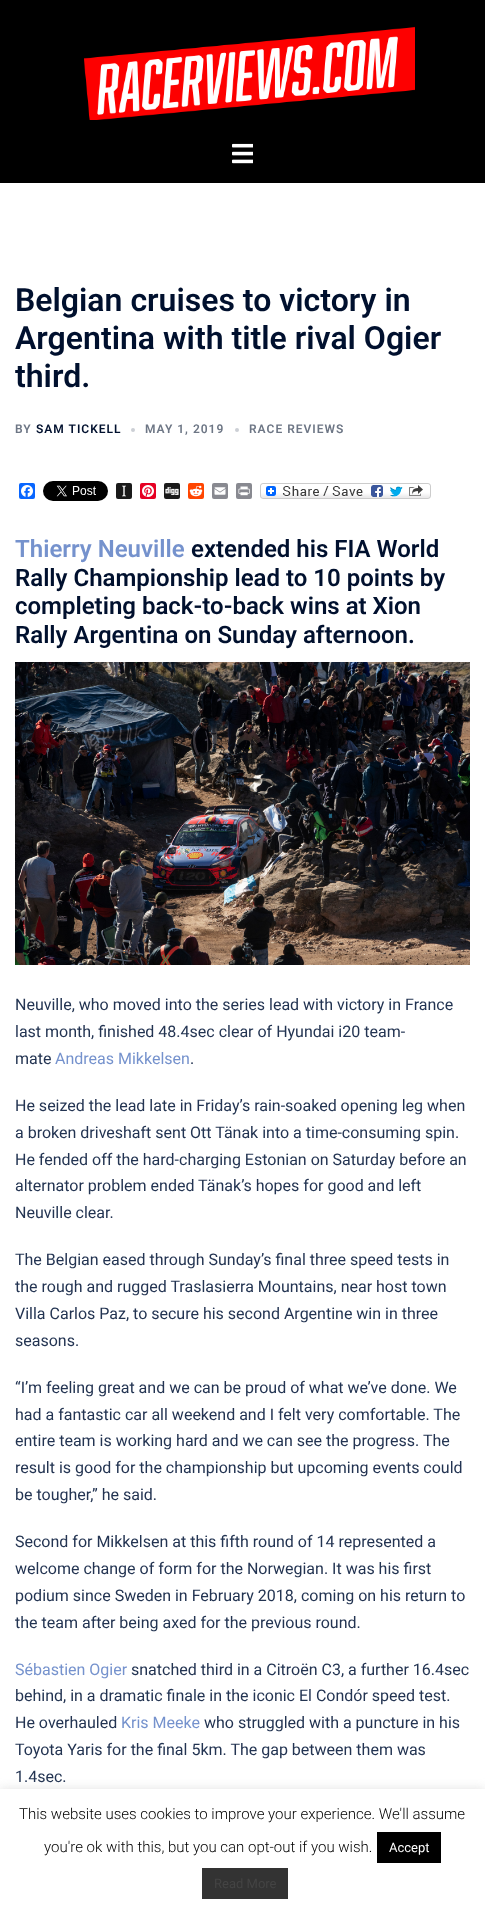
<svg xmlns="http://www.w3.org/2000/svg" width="485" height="1911">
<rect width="100%" height="100%" fill="#fff"/>
<rect width="485" height="183" fill="#000"/>
<image x="84" y="26" width="331" height="94" href="media/1.png"/>
<image x="232" y="143" width="21" height="21" href="media/2.png"/>
<text x="15" y="311" style="font-family:Roboto;font-size:32px;font-weight:600;fill:#00102e">Belgian cruises to victory in</text>
<text x="15" y="349" style="font-family:Roboto;font-size:32px;font-weight:600;fill:#00102e">Argentina with title rival Ogier</text>
<text x="15" y="387" style="font-family:Roboto;font-size:32px;font-weight:600;fill:#00102e">third.</text>
<text x="15" y="433" style="font-family:Roboto;font-size:12px;font-weight:600;letter-spacing:1px;fill:#6d7685">BY</text>
<text x="36" y="433" style="font-family:Roboto;font-size:12px;font-weight:600;letter-spacing:1px;fill:#00102e">SAM TICKELL</text>
<circle cx="133" cy="430" r="2" fill="#cccfd5"/>
<text x="145" y="433" style="font-family:Roboto;font-size:12px;font-weight:600;letter-spacing:1px;fill:#6d7685">MAY 1, 2019</text>
<circle cx="237" cy="430" r="2" fill="#cccfd5"/>
<text x="249" y="433" style="font-family:Roboto;font-size:12px;font-weight:600;letter-spacing:1px;fill:#6d7685">RACE REVIEWS</text>
<rect x="19" y="483" width="16" height="16" rx="2" fill="#0866ff"/>
<image x="21" y="485" width="12" height="12" href="media/3.png"/>
<image x="43" y="481" width="65" height="20" href="media/4.png"/>
<rect x="116" y="483" width="16" height="16" rx="2" fill="#1a1a1a"/>
<image x="122" y="485" width="4" height="12" href="media/5.png"/>
<rect x="140" y="483" width="16" height="16" rx="2" fill="#e60023"/>
<image x="142" y="485" width="12" height="12" href="media/6.png"/>
<rect x="164" y="483" width="16" height="16" rx="2" fill="#1a1a1a"/>
<image x="165" y="487" width="14" height="8" href="media/7.png"/>
<rect x="188" y="483" width="16" height="16" rx="2" fill="#ff4500"/>
<image x="189" y="485" width="14" height="12" href="media/8.png"/>
<rect x="212" y="483" width="16" height="16" rx="2" fill="#888990"/>
<image x="214" y="487" width="12" height="8" href="media/9.png"/>
<rect x="236" y="483" width="16" height="16" rx="2" fill="#888990"/>
<image x="238" y="486" width="12" height="10" href="media/10.png"/>
<image x="260" y="483" width="171" height="16" href="media/11.png"/>
<text x="15" y="557" style="font-family:Roboto;font-size:24px;font-weight:600;fill:#7592cd">Thierry Neuville</text>
<text x="191" y="557" style="font-family:Roboto;font-size:24px;font-weight:600;fill:#00102e">extended his FIA World</text>
<text x="15" y="586" style="font-family:Roboto;font-size:24px;font-weight:600;fill:#00102e">Rally Championship lead to 10 points by</text>
<text x="15" y="614" style="font-family:Roboto;font-size:24px;font-weight:600;fill:#00102e">completing back-to-back wins at Xion</text>
<text x="15" y="643" style="font-family:Roboto;font-size:24px;font-weight:600;fill:#00102e">Rally Argentina on Sunday afternoon.</text>
<image x="15" y="662" width="455" height="303" href="media/12.png"/>
<text x="15" y="1010" style="font-family:Roboto;font-size:16px;fill:#233452">Neuville, who moved into the series lead with victory in France</text>
<text x="15" y="1037" style="font-family:Roboto;font-size:16px;fill:#233452">last month, finished 48.4sec clear of Hyundai i20 team-</text>
<text x="15" y="1064" style="font-family:Roboto;font-size:16px;fill:#233452">mate</text>
<text x="55" y="1064" style="font-family:Roboto;font-size:16px;fill:#7592cd">Andreas Mikkelsen</text>
<text x="190" y="1064" style="font-family:Roboto;font-size:16px;fill:#233452">.</text>
<text x="15" y="1111" style="font-family:Roboto;font-size:16px;fill:#233452">He seized the lead late in Friday’s rain-soaked opening leg when</text>
<text x="15" y="1138" style="font-family:Roboto;font-size:16px;fill:#233452">a broken driveshaft sent Ott Tänak into a time-consuming spin.</text>
<text x="15" y="1165" style="font-family:Roboto;font-size:16px;fill:#233452">He fended off the hard-charging Estonian on Saturday before an</text>
<text x="15" y="1191" style="font-family:Roboto;font-size:16px;fill:#233452">alternator problem ended Tänak’s hopes for good and left</text>
<text x="15" y="1218" style="font-family:Roboto;font-size:16px;fill:#233452">Neuville clear.</text>
<text x="15" y="1265" style="font-family:Roboto;font-size:16px;fill:#233452">The Belgian eased through Sunday’s final three speed tests in</text>
<text x="15" y="1292" style="font-family:Roboto;font-size:16px;fill:#233452">the rough and rugged Traslasierra Mountains, near host town</text>
<text x="15" y="1319" style="font-family:Roboto;font-size:16px;fill:#233452">Villa Carlos Paz, to secure his second Argentine win in three</text>
<text x="15" y="1346" style="font-family:Roboto;font-size:16px;fill:#233452">seasons.</text>
<text x="15" y="1393" style="font-family:Roboto;font-size:16px;fill:#233452">“I’m feeling great and we can be proud of what we’ve done. We</text>
<text x="15" y="1420" style="font-family:Roboto;font-size:16px;fill:#233452">had a fantastic car all weekend and I felt very comfortable. The</text>
<text x="15" y="1446" style="font-family:Roboto;font-size:16px;fill:#233452">entire team is working hard and we can see the progress. The</text>
<text x="15" y="1473" style="font-family:Roboto;font-size:16px;fill:#233452">result is good for the championship but upcoming events could</text>
<text x="15" y="1500" style="font-family:Roboto;font-size:16px;fill:#233452">be tougher,” he said.</text>
<text x="15" y="1547" style="font-family:Roboto;font-size:16px;fill:#233452">Second for Mikkelsen at this fifth round of 14 represented a</text>
<text x="15" y="1574" style="font-family:Roboto;font-size:16px;fill:#233452">welcome change of form for the Norwegian. It was his first</text>
<text x="15" y="1601" style="font-family:Roboto;font-size:16px;fill:#233452">podium since Sweden in February 2018, coming on his return to</text>
<text x="15" y="1628" style="font-family:Roboto;font-size:16px;fill:#233452">the team after being axed for the previous round.</text>
<text x="15" y="1675" style="font-family:Roboto;font-size:16px;fill:#7592cd">Sébastien Ogier</text>
<text x="131" y="1675" style="font-family:Roboto;font-size:16px;fill:#233452">snatched third in a Citroën C3, a further 16.4sec</text>
<text x="15" y="1701" style="font-family:Roboto;font-size:16px;fill:#233452">behind, in a dramatic finale in the iconic El Condór speed test.</text>
<text x="15" y="1728" style="font-family:Roboto;font-size:16px;fill:#233452">He overhauled</text>
<text x="121" y="1728" style="font-family:Roboto;font-size:16px;fill:#7592cd">Kris Meeke</text>
<text x="204" y="1728" style="font-family:Roboto;font-size:16px;fill:#233452">who struggled with a puncture in his</text>
<text x="15" y="1755" style="font-family:Roboto;font-size:16px;fill:#233452">Toyota Yaris for the final 5km. The gap between them was</text>
<text x="15" y="1782" style="font-family:Roboto;font-size:16px;fill:#233452">1.4sec.</text>
<rect y="1788" width="485" height="122" fill="#acabab4d" filter="blur(5px)"/>
<rect y="1789" width="485" height="122" fill="#fff"/>
<text x="19" y="1819" style="font-family:Roboto;font-size:15px;font-weight:300;fill:#000">This website uses cookies to improve your experience. We'll assume</text>
<text x="44" y="1852" style="font-family:Roboto;font-size:15px;font-weight:300;fill:#000">you're ok with this, but you can opt-out if you wish.</text>
<rect x="377" y="1832" width="64" height="31" fill="#000"/>
<text x="389" y="1852" style="font-family:Roboto;font-size:13px;fill:#fff">Accept</text>
<rect x="202" y="1868" width="86" height="31" fill="#333"/>
<text x="214" y="1888" style="font-family:Roboto;font-size:13px;fill:#444">Read More</text>
</svg>
